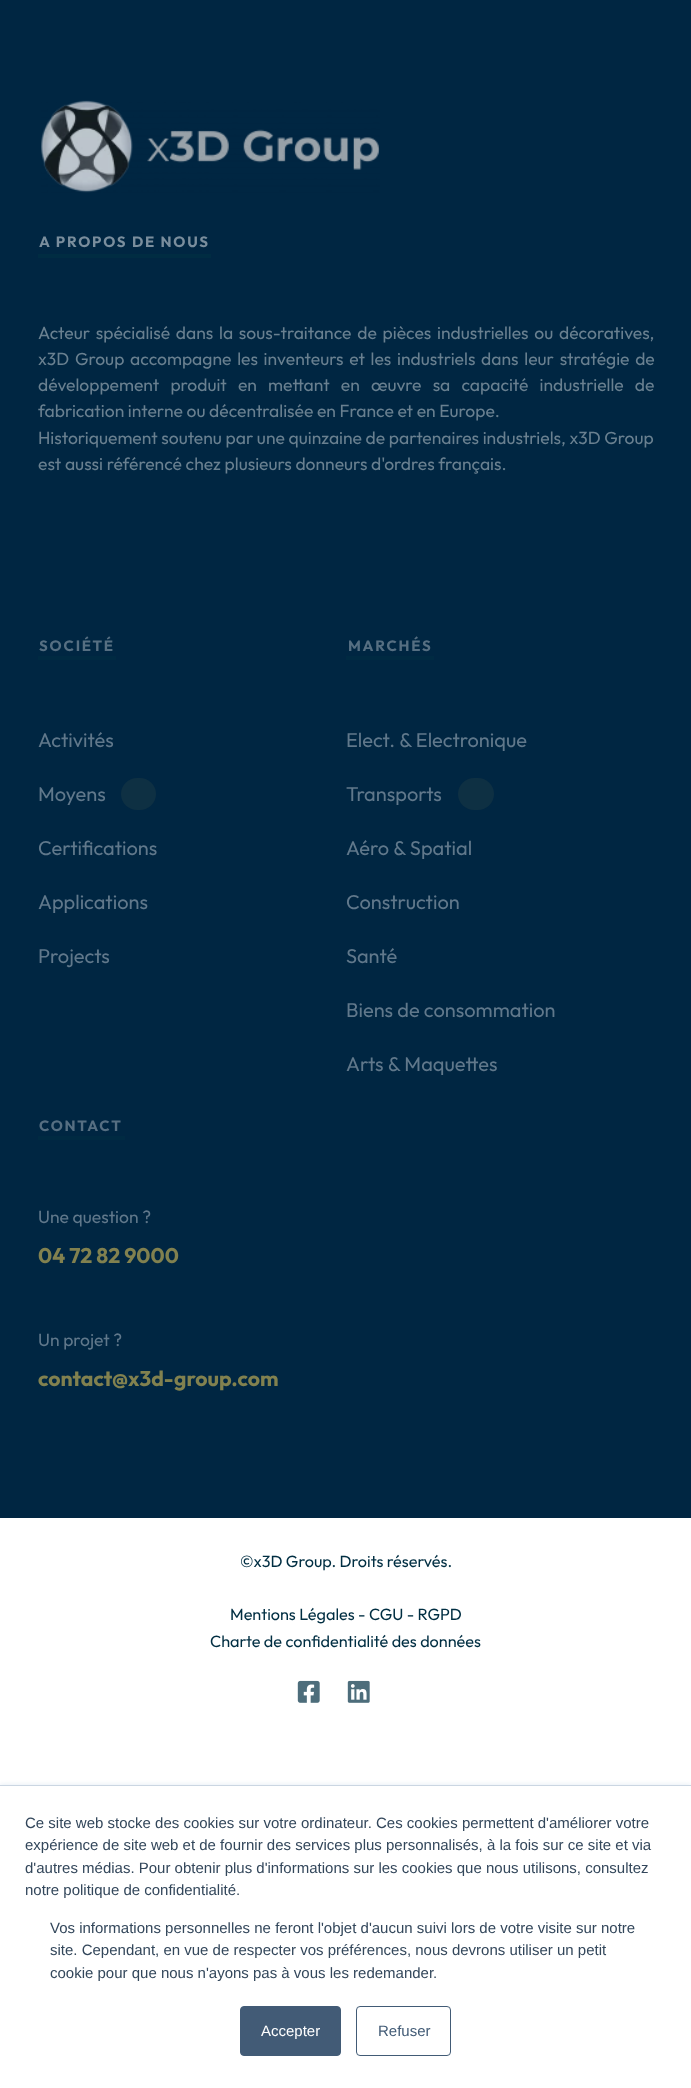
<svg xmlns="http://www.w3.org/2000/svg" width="691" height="2088">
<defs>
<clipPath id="clip1"><rect x="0" y="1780" width="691" height="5"/></clipPath>
</defs>
<rect width="100%" height="100%" fill="#fff"/>
<rect width="691" height="1518" fill="#002642"/>
<image x="41" y="100" width="339" height="93" href="media/1.png"/>
<text x="39" y="247" style="font-family:'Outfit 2';font-size:15px;font-weight:100;letter-spacing:1.75px;fill:#7a8e9d">A PROPOS DE NOUS</text>
<rect x="38" y="254" width="173" height="4" fill="#002c42"/>
<text x="38" y="339" word-spacing="2.1" style="font-family:Outfit;font-size:17.5px;font-weight:100;fill:#698090">Acteur spécialisé dans la sous-traitance de pièces industrielles ou décoratives,</text>
<text x="38" y="365" word-spacing="2.1" style="font-family:Outfit;font-size:17.5px;font-weight:100;fill:#698090">x3D Group accompagne les inventeurs et les industriels dans leur stratégie de</text>
<text x="38" y="391" word-spacing="7.5" style="font-family:Outfit;font-size:17.5px;font-weight:100;fill:#698090">développement produit en mettant en œuvre sa capacité industrielle de</text>
<text x="38" y="417" style="font-family:Outfit;font-size:17.5px;font-weight:100;fill:#698090">fabrication interne ou décentralisée en France et en Europe.</text>
<text x="38" y="444" style="font-family:Outfit;font-size:17.5px;font-weight:100;fill:#698090">Historiquement soutenu par une quinzaine de partenaires industriels, x3D Group</text>
<text x="38" y="470" style="font-family:Outfit;font-size:17.5px;font-weight:100;fill:#698090">est aussi référencé chez plusieurs donneurs d'ordres français.</text>
<text x="39" y="651" style="font-family:'Outfit 2';font-size:15px;font-weight:100;letter-spacing:1.75px;fill:#566f82">SOCIÉTÉ</text>
<rect x="38" y="656" width="78" height="4" fill="#002a42"/>
<text x="38" y="747" style="font-family:Outfit;font-size:20px;font-weight:100;fill:#60788b">Activités</text>
<text x="38" y="801" style="font-family:Outfit;font-size:20px;font-weight:100;fill:#60788b">Moyens</text>
<rect x="121" y="778" width="35" height="32" rx="16" fill="#0e3043"/>
<text x="38" y="855" style="font-family:Outfit;font-size:20px;font-weight:100;fill:#60788b">Certifications</text>
<text x="38" y="909" style="font-family:Outfit;font-size:20px;font-weight:100;fill:#60788b">Applications</text>
<text x="38" y="963" style="font-family:Outfit;font-size:20px;font-weight:100;fill:#60788b">Projects</text>
<text x="348" y="651" style="font-family:'Outfit 2';font-size:15px;font-weight:100;letter-spacing:1.75px;fill:#566f82">MARCHÉS</text>
<rect x="346" y="656" width="88" height="4" fill="#002a42"/>
<text x="346" y="747" style="font-family:Outfit;font-size:20px;font-weight:100;fill:#60788b">Elect. &amp; Electronique</text>
<text x="346" y="801" style="font-family:Outfit;font-size:20px;font-weight:100;fill:#60788b">Transports</text>
<rect x="458" y="778" width="36" height="32" rx="16" fill="#0e3043"/>
<text x="346" y="855" style="font-family:Outfit;font-size:20px;font-weight:100;fill:#60788b">Aéro &amp; Spatial</text>
<text x="346" y="909" style="font-family:Outfit;font-size:20px;font-weight:100;fill:#60788b">Construction</text>
<text x="346" y="963" style="font-family:Outfit;font-size:20px;font-weight:100;fill:#60788b">Santé</text>
<text x="346" y="1017" style="font-family:Outfit;font-size:20px;font-weight:100;fill:#60788b">Biens de consommation</text>
<text x="346" y="1071" style="font-family:Outfit;font-size:20px;font-weight:100;fill:#60788b">Arts &amp; Maquettes</text>
<text x="39" y="1131" style="font-family:'Outfit 2';font-size:15px;font-weight:100;letter-spacing:1.75px;fill:#566f82">CONTACT</text>
<rect x="38" y="1136" width="87" height="4" fill="#002a42"/>
<text x="38" y="1223" style="font-family:Outfit;font-size:17.5px;font-weight:100;fill:#60788b">Une question ?</text>
<text x="38" y="1263" style="font-family:'Outfit 2';font-size:21.25px;font-weight:100;fill:#81814f">04 72 82 9000</text>
<text x="38" y="1346" style="font-family:Outfit;font-size:17.5px;font-weight:100;fill:#60788b">Un projet ?</text>
<text x="38" y="1386" style="font-family:'Outfit 2';font-size:21.25px;font-weight:100;fill:#81814f">contact@x3d-group.com</text>
<text x="240" y="1567" style="font-family:Outfit;font-size:16.25px;font-weight:100;fill:#002e42">©x3D Group. Droits réservés.</text>
<text x="230" y="1620" style="font-family:Outfit;font-size:16.25px;font-weight:100;fill:#002e42">Mentions Légales - CGU - RGPD</text>
<text x="210" y="1647" style="font-family:Outfit;font-size:16.25px;font-weight:100;fill:#002e42">Charte de confidentialité des données</text>
<image x="297" y="1680" width="23" height="23" href="media/2.png"/>
<image x="347" y="1680" width="23" height="23" href="media/3.png"/>
<g clip-path="url(#clip1)">
<rect y="1784" width="691" height="304" fill="#eaf0f6" filter="blur(2px)"/>
</g>
<rect y="1785" width="691" height="1" fill="#cbd6e2"/>
<text x="25" y="1828" style="font-family:Liberation Sans;font-size:15px;fill:#33475b">Ce site web stocke des cookies sur votre ordinateur. Ces cookies permettent d'améliorer votre</text>
<text x="25" y="1850" style="font-family:Liberation Sans;font-size:15px;fill:#33475b">expérience de site web et de fournir des services plus personnalisés, à la fois sur ce site et via</text>
<text x="25" y="1873" style="font-family:Liberation Sans;font-size:15px;fill:#33475b">d'autres médias. Pour obtenir plus d'informations sur les cookies que nous utilisons, consultez</text>
<text x="25" y="1895" style="font-family:Liberation Sans;font-size:15px;fill:#33475b">notre politique de confidentialité.</text>
<text x="50" y="1933" style="font-family:Liberation Sans;font-size:15px;fill:#33475b">Vos informations personnelles ne feront l'objet d'aucun suivi lors de votre visite sur notre</text>
<text x="50" y="1955" style="font-family:Liberation Sans;font-size:15px;fill:#33475b">site. Cependant, en vue de respecter vos préférences, nous devrons utiliser un petit</text>
<text x="50" y="1978" style="font-family:Liberation Sans;font-size:15px;fill:#33475b">cookie pour que nous n'ayons pas à vous les redemander.</text>
<rect x="240.5" y="2006.5" width="100" height="49" rx="3.5" fill="#425b76" stroke="#425b76"/>
<text x="261" y="2036" style="font-family:Liberation Sans;font-size:15px;fill:#fff">Accepter</text>
<rect x="356.5" y="2006.5" width="94" height="49" rx="3.5" fill="none" stroke="#425b76"/>
<text x="378" y="2036" style="font-family:Liberation Sans;font-size:15px;fill:#425b76">Refuser</text>
</svg>
